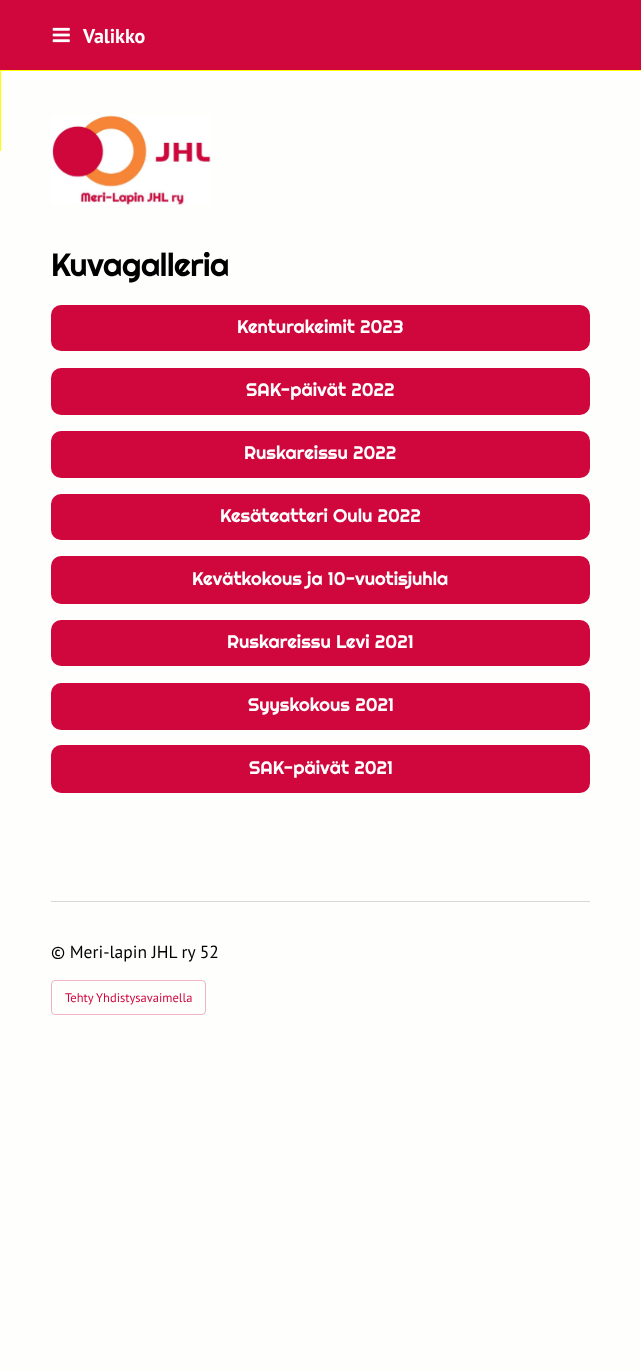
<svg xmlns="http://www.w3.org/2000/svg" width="641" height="1371">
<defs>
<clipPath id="clip1"><rect y="70" width="641" height="81"/></clipPath>
</defs>
<rect width="100%" height="100%" fill="#fefefd"/>
<g clip-path="url(#clip1)">
<rect x="-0.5" y="69.5" width="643" height="83" fill="none" stroke="#ff0" stroke-width="3"/>
</g>
<rect width="641" height="70" fill="#cf073d"/>
<image x="52" y="27" width="18" height="16" href="media/1.png"/>
<text x="83" y="43" style="font-family:PT Sans;font-size:20px;font-weight:bold;fill:#fff">Valikko</text>
<image x="51" y="115" width="160" height="90" href="media/2.png"/>
<text x="51" y="276" style="font-family:Righteous;font-size:32px;letter-spacing:-0.5px;fill:#000">Kuvagalleria</text>
<rect x="51" y="305" width="539" height="46" rx="10" fill="#cf073d"/>
<text x="237" y="333" style="font-family:Righteous;font-size:18.4px;fill:#fff">Kenturakeimit 2023</text>
<rect x="51" y="368" width="539" height="47" rx="10" fill="#cf073d"/>
<text x="246" y="396" style="font-family:Righteous;font-size:18.4px;fill:#fff">SAK-päivät 2022</text>
<rect x="51" y="431" width="539" height="47" rx="10" fill="#cf073d"/>
<text x="244" y="459" style="font-family:Righteous;font-size:18.4px;fill:#fff">Ruskareissu 2022</text>
<rect x="51" y="494" width="539" height="46" rx="10" fill="#cf073d"/>
<text x="220" y="522" style="font-family:Righteous;font-size:18.4px;fill:#fff">Kesäteatteri Oulu 2022</text>
<rect x="51" y="556" width="539" height="48" rx="10" fill="#cf073d"/>
<text x="192" y="585" style="font-family:Righteous;font-size:18.4px;fill:#fff">Kevätkokous ja 10-vuotisjuhla</text>
<rect x="51" y="620" width="539" height="46" rx="10" fill="#cf073d"/>
<text x="227" y="648" style="font-family:Righteous;font-size:18.4px;fill:#fff">Ruskareissu Levi 2021</text>
<rect x="51" y="683" width="539" height="47" rx="10" fill="#cf073d"/>
<text x="248" y="711" style="font-family:Righteous;font-size:18.4px;fill:#fff">Syyskokous 2021</text>
<rect x="51" y="745" width="539" height="48" rx="10" fill="#cf073d"/>
<text x="249" y="774" style="font-family:Righteous;font-size:18.4px;fill:#fff">SAK-päivät 2021</text>
<rect x="51" y="901" width="539" height="1" fill="#d8d8d7"/>
<text x="51" y="958" style="font-family:PT Sans;font-size:17.5px;fill:#000">© Meri-lapin JHL ry 52</text>
<rect x="51.5" y="980.5" width="154" height="34" rx="3.5" fill="none" stroke="#f0b4c3"/>
<text x="65" y="1002" style="font-family:PT Sans;font-size:12.5px;fill:#cf073d">Tehty Yhdistysavaimella</text>
</svg>
